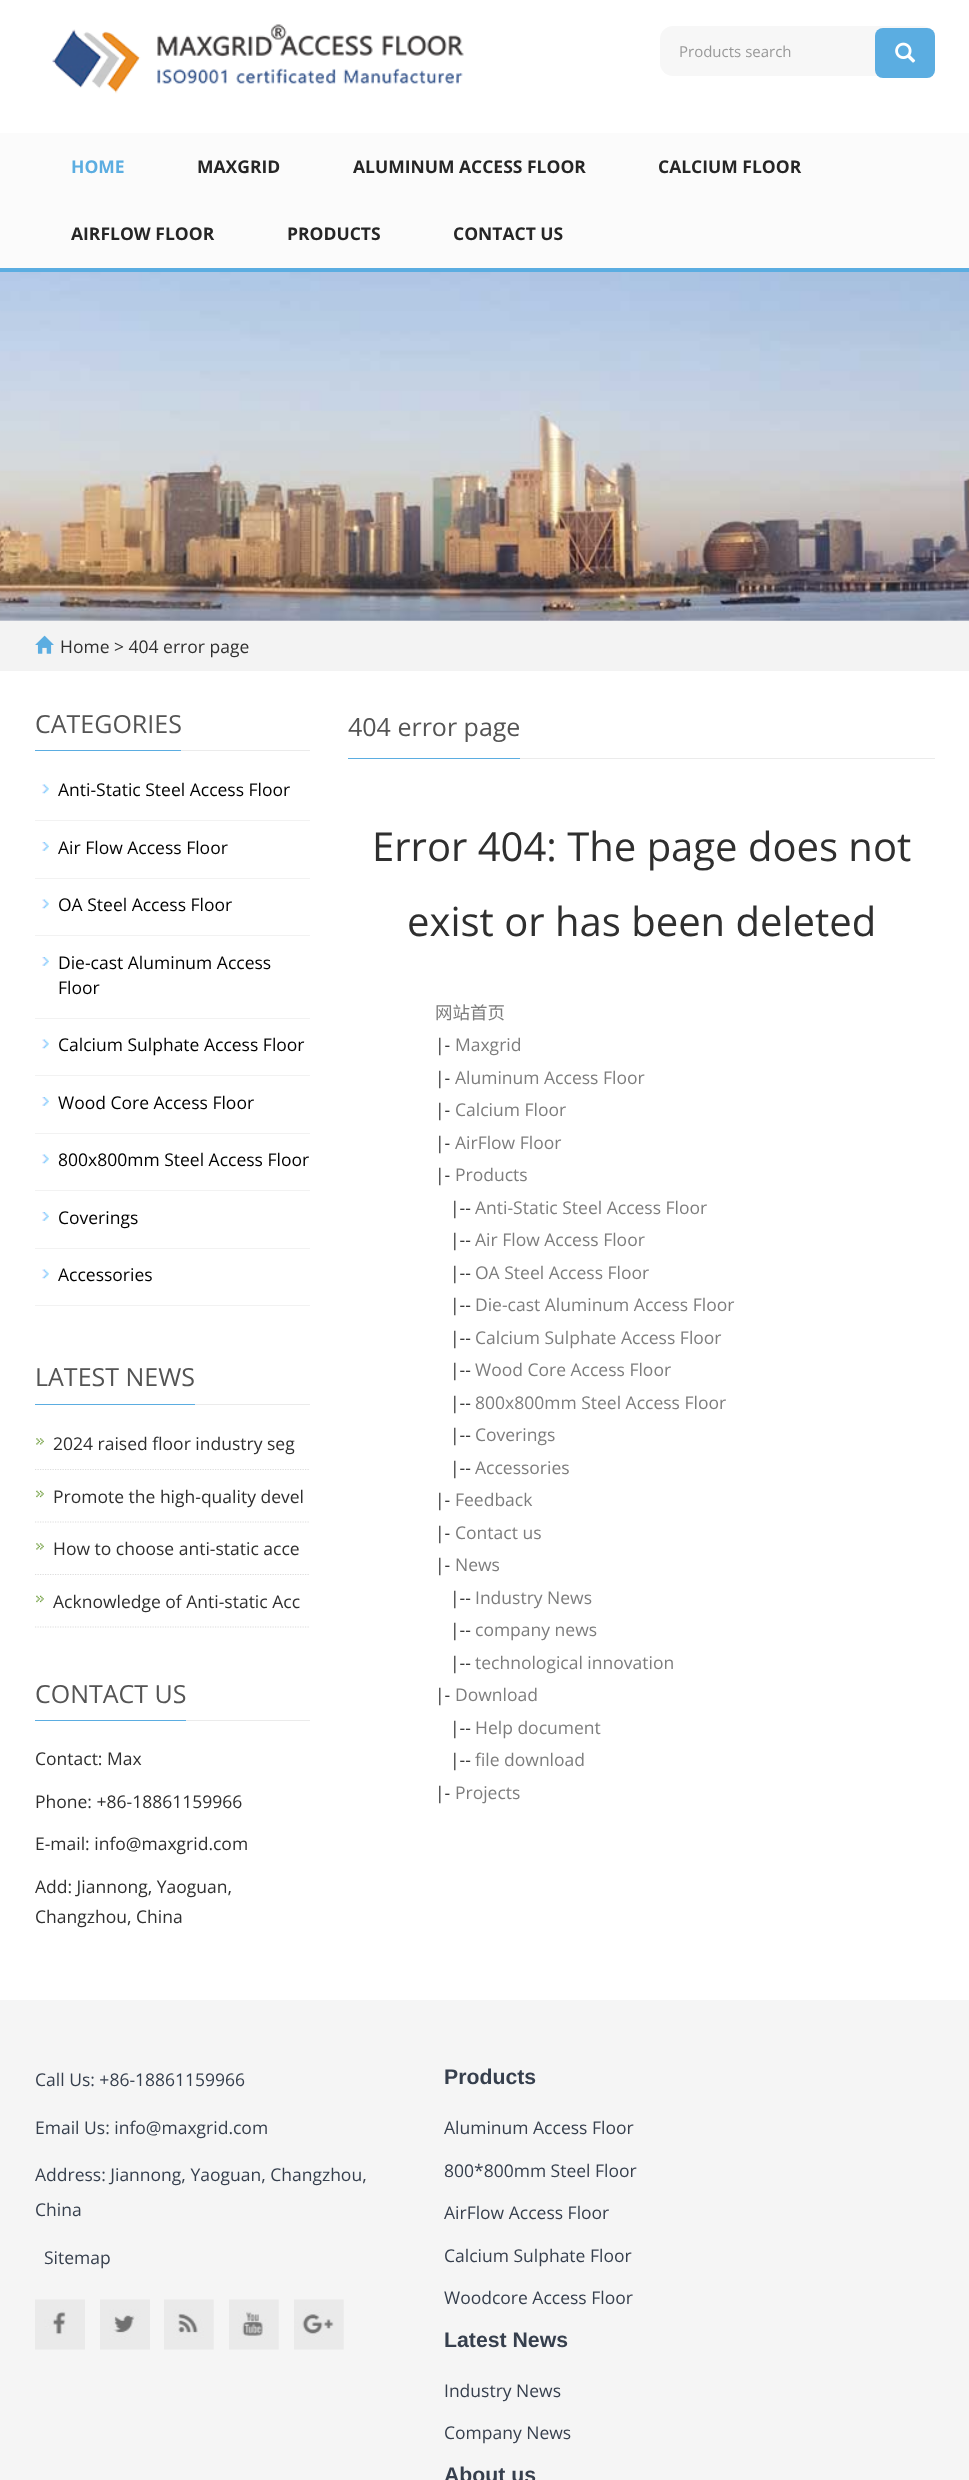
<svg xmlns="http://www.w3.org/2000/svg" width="969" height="2480">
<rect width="100%" height="100%" fill="#fff"/>
<image x="52" y="24" width="412" height="70" href="media/1.png"/>
<rect x="660" y="26" width="275" height="50" rx="13" fill="#f7f7f7"/>
<text x="679" y="57" style="font-family:Open Sans;font-size:15px;fill:#999">Products search</text>
<rect x="875" y="28" width="60" height="50" rx="8" fill="#5bade1"/>
<image x="895" y="42" width="21" height="21" href="media/2.png"/>
<rect y="133" width="969" height="135" fill="#fbfbfb"/>
<rect y="268" width="969" height="4" fill="#5bade1"/>
<text x="71" y="173" style="font-family:Open Sans;font-size:17.5px;font-weight:bold;fill:#5bade1">HOME</text>
<text x="197" y="173" style="font-family:Open Sans;font-size:17.5px;font-weight:bold;fill:#262626">MAXGRID</text>
<text x="353" y="173" style="font-family:Open Sans;font-size:17.5px;font-weight:bold;fill:#262626">ALUMINUM ACCESS FLOOR</text>
<text x="658" y="173" style="font-family:Open Sans;font-size:17.5px;font-weight:bold;fill:#262626">CALCIUM FLOOR</text>
<text x="71" y="240" style="font-family:Open Sans;font-size:17.5px;font-weight:bold;fill:#262626">AIRFLOW FLOOR</text>
<text x="287" y="240" style="font-family:Open Sans;font-size:17.5px;font-weight:bold;fill:#262626">PRODUCTS</text>
<text x="453" y="240" style="font-family:Open Sans;font-size:17.5px;font-weight:bold;fill:#262626">CONTACT US</text>
<image x="0" y="272" width="969" height="349" href="media/3.png"/>
<rect y="621" width="969" height="50" fill="#f3f3f3"/>
<image x="35" y="635" width="19" height="19" href="media/4.png"/>
<text x="60" y="653" style="font-family:Open Sans;font-size:17.5px;fill:#2f2f2f">Home &gt; 404 error page</text>
<rect x="181" y="750" width="129" height="1" fill="#ebebeb"/>
<rect x="35" y="750" width="146" height="1" fill="#5bade1"/>
<text x="35" y="733" style="font-family:Open Sans;font-size:25px;fill:#545454">CATEGORIES</text>
<image x="42" y="784" width="7" height="10" href="media/5.png"/>
<rect x="35" y="820" width="275" height="1" fill="#f2f2f2"/>
<text x="58" y="796" style="font-family:Open Sans;font-size:17.5px;fill:#000">Anti-Static Steel Access Floor</text>
<image x="42" y="842" width="7" height="9" href="media/6.png"/>
<rect x="35" y="878" width="275" height="1" fill="#f2f2f2"/>
<text x="58" y="854" style="font-family:Open Sans;font-size:17.5px;fill:#000">Air Flow Access Floor</text>
<image x="42" y="899" width="7" height="10" href="media/5.png"/>
<rect x="35" y="935" width="275" height="1" fill="#f2f2f2"/>
<text x="58" y="911" style="font-family:Open Sans;font-size:17.5px;fill:#000">OA Steel Access Floor</text>
<image x="42" y="957" width="7" height="9" href="media/6.png"/>
<rect x="35" y="1018" width="275" height="1" fill="#f2f2f2"/>
<text x="58" y="969" style="font-family:Open Sans;font-size:17.5px;fill:#000">Die-cast Aluminum Access</text>
<text x="58" y="994" style="font-family:Open Sans;font-size:17.5px;fill:#000">Floor</text>
<image x="42" y="1039" width="7" height="10" href="media/5.png"/>
<rect x="35" y="1075" width="275" height="1" fill="#f2f2f2"/>
<text x="58" y="1051" style="font-family:Open Sans;font-size:17.5px;fill:#000">Calcium Sulphate Access Floor</text>
<image x="42" y="1097" width="7" height="9" href="media/6.png"/>
<rect x="35" y="1133" width="275" height="1" fill="#f2f2f2"/>
<text x="58" y="1109" style="font-family:Open Sans;font-size:17.5px;fill:#000">Wood Core Access Floor</text>
<image x="42" y="1154" width="7" height="10" href="media/5.png"/>
<rect x="35" y="1190" width="275" height="1" fill="#f2f2f2"/>
<text x="58" y="1166" style="font-family:Open Sans;font-size:17.5px;fill:#000">800x800mm Steel Access Floor</text>
<image x="42" y="1212" width="7" height="9" href="media/6.png"/>
<rect x="35" y="1248" width="275" height="1" fill="#f2f2f2"/>
<text x="58" y="1224" style="font-family:Open Sans;font-size:17.5px;fill:#000">Coverings</text>
<image x="42" y="1269" width="7" height="10" href="media/5.png"/>
<rect x="35" y="1305" width="275" height="1" fill="#f2f2f2"/>
<text x="58" y="1281" style="font-family:Open Sans;font-size:17.5px;fill:#000">Accessories</text>
<rect x="195" y="1404" width="115" height="1" fill="#ebebeb"/>
<rect x="35" y="1404" width="160" height="1" fill="#5bade1"/>
<text x="35" y="1386" style="font-family:Open Sans;font-size:25px;fill:#545454">LATEST NEWS</text>
<image x="36" y="1438" width="8" height="7" href="media/7.png"/>
<path d="M35 1469.5h275" fill="none" stroke="#ddd" stroke-width="1.2" stroke-dasharray="1.25 1.25"/>
<text x="53" y="1450" style="font-family:Open Sans;font-size:17.5px;fill:#2f2f2f">2024 raised floor industry seg</text>
<image x="36" y="1490" width="8" height="8" href="media/8.png"/>
<path d="M35 1522h275" fill="none" stroke="#ddd" stroke-width="1.2" stroke-dasharray="1.25 1.25"/>
<text x="53" y="1503" style="font-family:Open Sans;font-size:17.5px;fill:#2f2f2f">Promote the high-quality devel</text>
<image x="36" y="1543" width="8" height="7" href="media/7.png"/>
<path d="M35 1574.5h275" fill="none" stroke="#ddd" stroke-width="1.2" stroke-dasharray="1.25 1.25"/>
<text x="53" y="1555" style="font-family:Open Sans;font-size:17.5px;fill:#2f2f2f">How to choose anti-static acce</text>
<image x="36" y="1595" width="8" height="8" href="media/8.png"/>
<path d="M35 1627h275" fill="none" stroke="#ddd" stroke-width="1.2" stroke-dasharray="1.25 1.25"/>
<text x="53" y="1608" style="font-family:Open Sans;font-size:17.5px;fill:#2f2f2f">Acknowledge of Anti-static Acc</text>
<rect x="186" y="1720" width="124" height="1" fill="#ebebeb"/>
<rect x="35" y="1720" width="151" height="1" fill="#5bade1"/>
<text x="35" y="1703" style="font-family:Open Sans;font-size:25px;fill:#545454">CONTACT US</text>
<text x="35" y="1765" style="font-family:Open Sans;font-size:17.5px;fill:#2f2f2f">Contact: Max</text>
<text x="35" y="1808" style="font-family:Open Sans;font-size:17.5px;fill:#2f2f2f">Phone: +86-18861159966</text>
<text x="35" y="1850" style="font-family:Open Sans;font-size:17.5px;fill:#2f2f2f">E-mail: info@maxgrid.com</text>
<text x="35" y="1893" style="font-family:Open Sans;font-size:17.5px;fill:#2f2f2f">Add: Jiannong, Yaoguan,</text>
<text x="35" y="1923" style="font-family:Open Sans;font-size:17.5px;fill:#2f2f2f">Changzhou, China</text>
<rect x="520" y="758" width="415" height="1" fill="#ebebeb"/>
<rect x="348" y="758" width="172" height="1" fill="#5bade1"/>
<text x="348" y="736" style="font-family:Open Sans;font-size:25px;fill:#545454">404 error page</text>
<text x="372" y="861" style="font-family:Open Sans;font-size:40px;fill:#2f2f2f">Error 404: The page does not</text>
<text x="407" y="936" style="font-family:Open Sans;font-size:40px;fill:#2f2f2f">exist or has been deleted</text>
<text x="435" y="1019" style="font-family:Noto Sans CJK SC;font-size:17.5px;fill:#7d7d7d">网站首页</text>
<text x="435" y="1051" style="font-family:Open Sans;font-size:17.5px;fill:#2f2f2f">|-</text>
<text x="455" y="1051" style="font-family:Open Sans;font-size:17.5px;fill:#7d7d7d">Maxgrid</text>
<text x="435" y="1084" style="font-family:Open Sans;font-size:17.5px;fill:#2f2f2f">|-</text>
<text x="455" y="1084" style="font-family:Open Sans;font-size:17.5px;fill:#7d7d7d">Aluminum Access Floor</text>
<text x="435" y="1116" style="font-family:Open Sans;font-size:17.5px;fill:#2f2f2f">|-</text>
<text x="455" y="1116" style="font-family:Open Sans;font-size:17.5px;fill:#7d7d7d">Calcium Floor</text>
<text x="435" y="1149" style="font-family:Open Sans;font-size:17.5px;fill:#2f2f2f">|-</text>
<text x="455" y="1149" style="font-family:Open Sans;font-size:17.5px;fill:#7d7d7d">AirFlow Floor</text>
<text x="435" y="1181" style="font-family:Open Sans;font-size:17.5px;fill:#2f2f2f">|-</text>
<text x="455" y="1181" style="font-family:Open Sans;font-size:17.5px;fill:#7d7d7d">Products</text>
<text x="450" y="1214" style="font-family:Open Sans;font-size:17.5px;fill:#2f2f2f">|--</text>
<text x="475" y="1214" style="font-family:Open Sans;font-size:17.5px;fill:#7d7d7d">Anti-Static Steel Access Floor</text>
<text x="450" y="1246" style="font-family:Open Sans;font-size:17.5px;fill:#2f2f2f">|--</text>
<text x="475" y="1246" style="font-family:Open Sans;font-size:17.5px;fill:#7d7d7d">Air Flow Access Floor</text>
<text x="450" y="1279" style="font-family:Open Sans;font-size:17.5px;fill:#2f2f2f">|--</text>
<text x="475" y="1279" style="font-family:Open Sans;font-size:17.5px;fill:#7d7d7d">OA Steel Access Floor</text>
<text x="450" y="1311" style="font-family:Open Sans;font-size:17.5px;fill:#2f2f2f">|--</text>
<text x="475" y="1311" style="font-family:Open Sans;font-size:17.5px;fill:#7d7d7d">Die-cast Aluminum Access Floor</text>
<text x="450" y="1344" style="font-family:Open Sans;font-size:17.5px;fill:#2f2f2f">|--</text>
<text x="475" y="1344" style="font-family:Open Sans;font-size:17.5px;fill:#7d7d7d">Calcium Sulphate Access Floor</text>
<text x="450" y="1376" style="font-family:Open Sans;font-size:17.5px;fill:#2f2f2f">|--</text>
<text x="475" y="1376" style="font-family:Open Sans;font-size:17.5px;fill:#7d7d7d">Wood Core Access Floor</text>
<text x="450" y="1409" style="font-family:Open Sans;font-size:17.5px;fill:#2f2f2f">|--</text>
<text x="475" y="1409" style="font-family:Open Sans;font-size:17.5px;fill:#7d7d7d">800x800mm Steel Access Floor</text>
<text x="450" y="1441" style="font-family:Open Sans;font-size:17.5px;fill:#2f2f2f">|--</text>
<text x="475" y="1441" style="font-family:Open Sans;font-size:17.5px;fill:#7d7d7d">Coverings</text>
<text x="450" y="1474" style="font-family:Open Sans;font-size:17.5px;fill:#2f2f2f">|--</text>
<text x="475" y="1474" style="font-family:Open Sans;font-size:17.5px;fill:#7d7d7d">Accessories</text>
<text x="435" y="1506" style="font-family:Open Sans;font-size:17.5px;fill:#2f2f2f">|-</text>
<text x="455" y="1506" style="font-family:Open Sans;font-size:17.5px;fill:#7d7d7d">Feedback</text>
<text x="435" y="1539" style="font-family:Open Sans;font-size:17.5px;fill:#2f2f2f">|-</text>
<text x="455" y="1539" style="font-family:Open Sans;font-size:17.5px;fill:#7d7d7d">Contact us</text>
<text x="435" y="1571" style="font-family:Open Sans;font-size:17.5px;fill:#2f2f2f">|-</text>
<text x="455" y="1571" style="font-family:Open Sans;font-size:17.5px;fill:#7d7d7d">News</text>
<text x="450" y="1604" style="font-family:Open Sans;font-size:17.5px;fill:#2f2f2f">|--</text>
<text x="475" y="1604" style="font-family:Open Sans;font-size:17.5px;fill:#7d7d7d">Industry News</text>
<text x="450" y="1636" style="font-family:Open Sans;font-size:17.5px;fill:#2f2f2f">|--</text>
<text x="475" y="1636" style="font-family:Open Sans;font-size:17.5px;fill:#7d7d7d">company news</text>
<text x="450" y="1669" style="font-family:Open Sans;font-size:17.5px;fill:#2f2f2f">|--</text>
<text x="475" y="1669" style="font-family:Open Sans;font-size:17.5px;fill:#7d7d7d">technological innovation</text>
<text x="435" y="1701" style="font-family:Open Sans;font-size:17.5px;fill:#2f2f2f">|-</text>
<text x="455" y="1701" style="font-family:Open Sans;font-size:17.5px;fill:#7d7d7d">Download</text>
<text x="450" y="1734" style="font-family:Open Sans;font-size:17.5px;fill:#2f2f2f">|--</text>
<text x="475" y="1734" style="font-family:Open Sans;font-size:17.5px;fill:#7d7d7d">Help document</text>
<text x="450" y="1766" style="font-family:Open Sans;font-size:17.5px;fill:#2f2f2f">|--</text>
<text x="475" y="1766" style="font-family:Open Sans;font-size:17.5px;fill:#7d7d7d">file download</text>
<text x="435" y="1799" style="font-family:Open Sans;font-size:17.5px;fill:#2f2f2f">|-</text>
<text x="455" y="1799" style="font-family:Open Sans;font-size:17.5px;fill:#7d7d7d">Projects</text>
<rect y="2000" width="969" height="480" fill="#f5f5f5"/>
<text x="35" y="2086" style="font-family:Open Sans;font-size:17.5px;fill:#363f4d">Call Us: +86-18861159966</text>
<text x="35" y="2134" style="font-family:Open Sans;font-size:17.5px;fill:#363f4d">Email Us: info@maxgrid.com</text>
<text x="35" y="2181" style="font-family:Open Sans;font-size:17.5px;fill:#363f4d">Address: Jiannong, Yaoguan, Changzhou,</text>
<text x="35" y="2216" style="font-family:Open Sans;font-size:17.5px;fill:#363f4d">China</text>
<text x="44" y="2264" style="font-family:Open Sans;font-size:17.5px;fill:#363f4d">Sitemap</text>
<image x="35" y="2299" width="50" height="51" href="media/9.png"/>
<image x="100" y="2299" width="50" height="51" href="media/10.png"/>
<image x="164" y="2299" width="50" height="51" href="media/11.png"/>
<image x="229" y="2299" width="50" height="51" href="media/12.png"/>
<image x="294" y="2299" width="50" height="51" href="media/13.png"/>
<text x="444" y="2084" style="font-family:Liberation Sans;font-size:21.25px;font-weight:bold;fill:#363f4d">Products</text>
<text x="444" y="2134" style="font-family:Open Sans;font-size:17.5px;fill:#363f4d">Aluminum Access Floor</text>
<text x="444" y="2177" style="font-family:Open Sans;font-size:17.5px;fill:#363f4d">800*800mm Steel Floor</text>
<text x="444" y="2219" style="font-family:Open Sans;font-size:17.5px;fill:#363f4d">AirFlow Access Floor</text>
<text x="444" y="2262" style="font-family:Open Sans;font-size:17.5px;fill:#363f4d">Calcium Sulphate Floor</text>
<text x="444" y="2304" style="font-family:Open Sans;font-size:17.5px;fill:#363f4d">Woodcore Access Floor</text>
<text x="444" y="2347" style="font-family:Liberation Sans;font-size:21.25px;font-weight:bold;fill:#363f4d">Latest News</text>
<text x="444" y="2397" style="font-family:Open Sans;font-size:17.5px;fill:#363f4d">Industry News</text>
<text x="444" y="2439" style="font-family:Open Sans;font-size:17.5px;fill:#363f4d">Company News</text>
<text x="444" y="2482" style="font-family:Liberation Sans;font-size:21.25px;font-weight:bold;fill:#363f4d">About us</text>
</svg>
